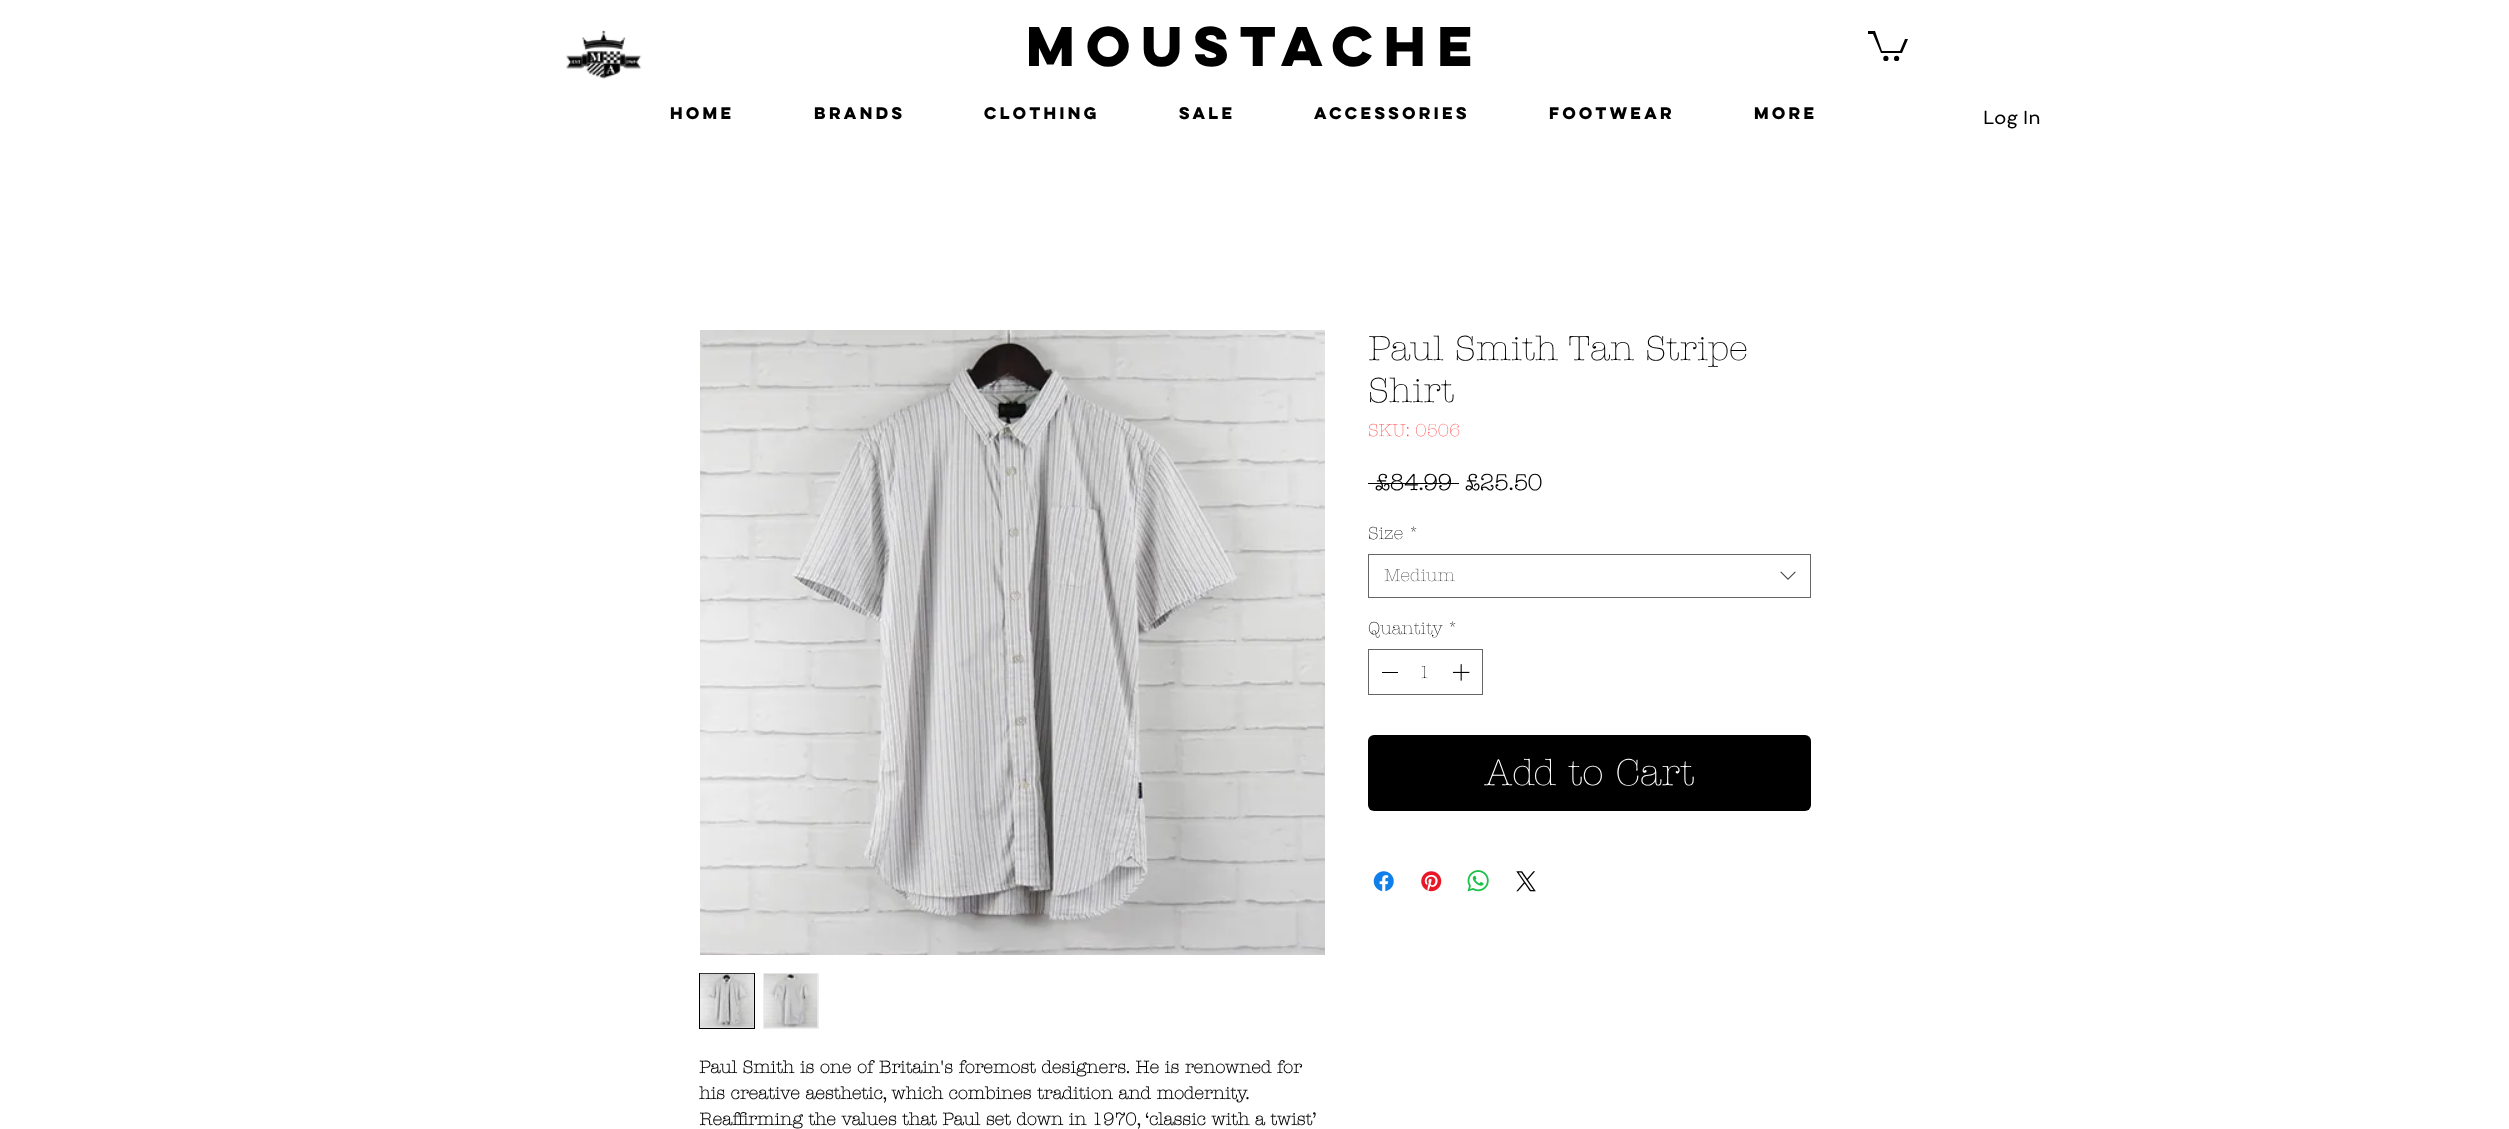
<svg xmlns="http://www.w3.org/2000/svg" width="2509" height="1129">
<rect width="100%" height="100%" fill="#fff"/>
<image x="566" y="30" width="76" height="49" href="media/1.png"/>
<text x="1026" y="66" style="font-family:'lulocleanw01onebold';font-size:50px;font-weight:bold;fill:#000">MOUSTACHE</text>
<path d="M1908 39l-6 14h-21l-8-19h-5v-3h7l7 20h18l5-12" fill="#000"/>
<circle cx="1896.6" cy="58.4" r="2.6" fill="#000"/>
<circle cx="1885.9" cy="58.4" r="2.6" fill="#000"/>
<text x="670" y="119" style="font-family:'lulocleanw01onebold';font-size:15px;font-weight:bold;fill:#000">Home</text>
<text x="814" y="119" style="font-family:'lulocleanw01onebold';font-size:15px;font-weight:bold;fill:#000">Brands</text>
<text x="984" y="119" style="font-family:'lulocleanw01onebold';font-size:15px;font-weight:bold;fill:#000">Clothing</text>
<text x="1179" y="119" style="font-family:'lulocleanw01onebold';font-size:15px;font-weight:bold;fill:#000">SALE</text>
<text x="1314" y="119" style="font-family:'lulocleanw01onebold';font-size:15px;font-weight:bold;fill:#000">Accessories</text>
<text x="1549" y="119" style="font-family:'lulocleanw01onebold';font-size:15px;font-weight:bold;fill:#000">Footwear</text>
<text x="1754" y="119" style="font-family:'lulocleanw01onebold';font-size:15px;font-weight:bold;fill:#000">More</text>
<text x="1983" y="124" style="font-family:Spinnaker;font-size:19px;fill:#000">Log In</text>
<text x="1368" y="360" style="font-family:'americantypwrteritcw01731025';font-size:35px;font-weight:300;fill:#000">Paul Smith Tan Stripe</text>
<text x="1368" y="402" style="font-family:'americantypwrteritcw01731025';font-size:35px;font-weight:300;fill:#000">Shirt</text>
<text x="1368" y="436" style="font-family:'americantypwrteritcw01731025';font-size:17.5px;font-weight:300;fill:#ff4f4f">SKU: 0506</text>
<text x="1375" y="490" style="font-family:'americantypwrteritcw01731025';font-size:22.5px;font-weight:bold;fill:#000">£84.99</text>
<rect x="1368" y="483" width="91" height="1" fill="#000"/>
<text x="1465" y="490" style="font-family:'americantypwrteritcw01731025';font-size:22.5px;font-weight:bold;fill:#000">£25.50</text>
<text x="1368" y="539" style="font-family:'americantypwrteritcw01731025';font-size:17.5px;font-weight:300;fill:#000">Size</text>
<text x="1408" y="539" style="font-family:'americantypwrteritcw01731025';font-size:17.5px;font-weight:300;fill:#000">*</text>
<rect x="1368.5" y="554.5" width="442" height="43" fill="none" stroke="#666"/>
<text x="1384" y="581" style="font-family:'americantypwrteritcw01731025';font-size:17.5px;font-weight:300;fill:#444">Medium</text>
<image x="1780" y="571" width="16" height="9" href="media/2.png"/>
<text x="1368" y="634" style="font-family:'americantypwrteritcw01731025';font-size:17.5px;font-weight:300;fill:#000">Quantity</text>
<text x="1447" y="634" style="font-family:'americantypwrteritcw01731025';font-size:17.5px;font-weight:300;fill:#000">*</text>
<rect x="1368.5" y="649.5" width="114" height="45" fill="none" stroke="#666"/>
<rect x="1382" y="672" width="16" height="1" fill="#000"/>
<text x="1419" y="678" style="font-family:'americantypwrteritcw01731025';font-size:17.5px;font-weight:300;fill:#000">1</text>
<image x="1452" y="664" width="18" height="17" href="media/3.png"/>
<rect x="1368" y="735" width="443" height="76" rx="6" fill="#000"/>
<text x="1484" y="785" style="font-family:'americantypwrteritcw01731025';font-size:37.5px;font-weight:300;fill:#fff">Add to Cart</text>
<image x="1373" y="871" width="21" height="21" href="media/4.png"/>
<image x="1421" y="871" width="21" height="21" href="media/5.png"/>
<image x="1467" y="870" width="22" height="22" href="media/6.png"/>
<image x="1516" y="871" width="20" height="21" href="media/7.png"/>
<image x="700" y="330" width="625" height="625" href="media/8.png"/>
<rect x="699.5" y="973.5" width="55" height="55" fill="#ededee" stroke="#000"/>
<image x="700" y="973" width="54" height="55" href="media/9.png"/>
<rect x="763" y="973" width="56" height="56" fill="#ededee"/>
<image x="764" y="973" width="54" height="55" href="media/10.png"/>
<text x="699" y="1073" style="font-family:'americantypwrteritcw01731025';font-size:17.5px;font-weight:bold;fill:#000">Paul Smith is one of Britain's foremost designers. He is renowned for</text>
<text x="699" y="1099" style="font-family:'americantypwrteritcw01731025';font-size:17.5px;font-weight:bold;fill:#000">his creative aesthetic, which combines tradition and modernity.</text>
<text x="699" y="1125" style="font-family:'americantypwrteritcw01731025';font-size:17.5px;font-weight:bold;fill:#000">Reaffirming the values that Paul set down in 1970, ‘classic with a twist’</text>
</svg>
